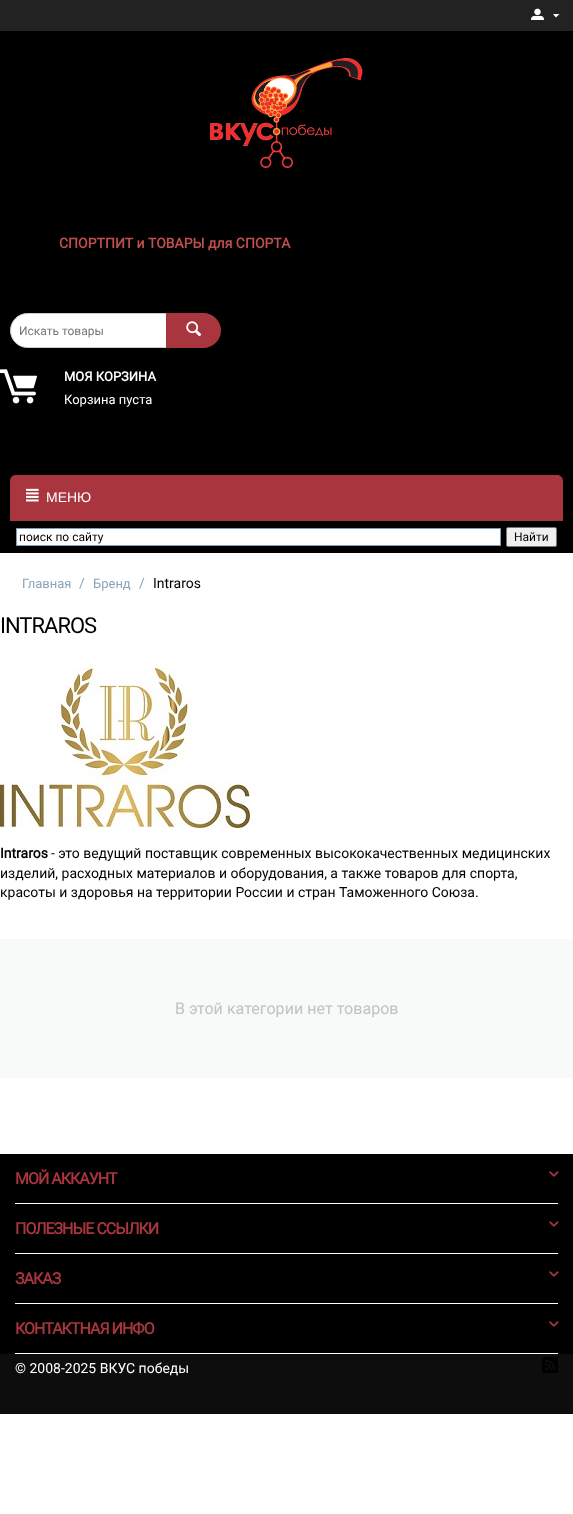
<svg xmlns="http://www.w3.org/2000/svg" width="573" height="1514">
<rect width="100%" height="100%" fill="#fff"/>
<rect width="573" height="31" fill="#222"/>
<rect y="31" width="573" height="522" fill="#000"/>
<image x="531" y="8" width="13" height="12" href="media/1.png"/>
<path d="M556 17.5l-3-3.5h6.5z" fill="#fff"/>
<image x="210" y="58" width="153" height="110" href="media/2.png"/>
<text x="59" y="248" style="font-family:Roboto;font-size:14px;font-weight:bold;fill:#c0504d">СПОРТПИТ и ТОВАРЫ для СПОРТА</text>
<rect x="10.5" y="313.5" width="175" height="34" rx="17" fill="#fff" stroke="#ccc"/>
<text x="19" y="335" style="font-family:Roboto;font-size:12px;fill:#757575">Искать товары</text>
<path d="M166 313h37.5c9.5 0 17.5 8 17.5 17.5c0 9.5-8 17.5-17.5 17.5h-37.5z" fill="#a9353e"/>
<image x="186" y="321" width="16" height="16" href="media/3.png"/>
<image x="0" y="369" width="37" height="35" href="media/4.png"/>
<text x="64" y="381" style="font-family:Roboto;font-size:13px;font-weight:bold;fill:#fff">МОЯ КОРЗИНА</text>
<text x="64" y="404" style="font-family:Roboto;font-size:13px;fill:#fff">Корзина пуста</text>
<path d="M16 475h541c3.5 0 6 2.5 6 6v40h-553v-40c0-3.5 2.5-6 6-6z" fill="#a9353e"/>
<image x="26" y="488" width="13" height="14" href="media/5.png"/>
<text x="46" y="502" style="font-family:Liberation Sans;font-size:14px;fill:#fff">МЕНЮ</text>
<rect x="16.5" y="528.5" width="484" height="17" fill="#fff" stroke="#7f9db9"/>
<text x="19" y="541" style="font-family:Roboto;font-size:12px;fill:#000">поиск по сайту</text>
<rect x="506.5" y="527.5" width="50" height="19" rx="1.5" fill="#efefef" stroke="#767676"/>
<text x="514" y="541" style="font-family:Roboto;font-size:12px;fill:#000">Найти</text>
<text x="22" y="588" style="font-family:Roboto;font-size:13px;fill:#8ca3ba">Главная</text>
<text x="79" y="588" style="font-family:Roboto;font-size:14px;fill:#8ca3ba">/</text>
<text x="93" y="588" style="font-family:Roboto;font-size:13px;fill:#8ca3ba">Бренд</text>
<text x="139" y="588" style="font-family:Roboto;font-size:14px;fill:#8ca3ba">/</text>
<text x="153" y="588" style="font-family:Roboto;font-size:14px;fill:#000">Intraros</text>
<text x="0" y="633" style="font-family:Roboto;font-size:22px;letter-spacing:-1px;fill:#000">INTRAROS</text>
<image x="0" y="668" width="250" height="160" href="media/6.png"/>
<text x="0" y="858" style="font-family:Roboto;font-size:14px;font-weight:bold;fill:#000">Intraros</text>
<text x="51" y="858" style="font-family:Roboto;font-size:14px;fill:#000">- это ведущий поставщик современных высококачественных медицинских</text>
<text x="0" y="878" style="font-family:Roboto;font-size:14px;fill:#000">изделий, расходных материалов и оборудования, а также товаров для спорта,</text>
<text x="0" y="897" style="font-family:Roboto;font-size:14px;fill:#000">красоты и здоровья на территории России и стран Таможенного Союза.</text>
<rect y="939" width="573" height="139" fill="#f8f9f9"/>
<text x="175" y="1014" style="font-family:Roboto;font-size:16.1px;fill:#bdc3c7">В этой категории нет товаров</text>
<rect y="1154" width="573" height="200" fill="#000"/>
<rect x="15" y="1203" width="543" height="1" fill="#fff"/>
<text x="15" y="1184" style="font-family:Roboto;font-size:16px;font-weight:bold;letter-spacing:-1px;fill:#a9353e">МОЙ АККАУНТ</text>
<image x="549" y="1171" width="10" height="6" href="media/7.png"/>
<rect x="15" y="1253" width="543" height="1" fill="#fff"/>
<text x="15" y="1234" style="font-family:Roboto;font-size:16px;font-weight:bold;letter-spacing:-1px;fill:#a9353e">ПОЛЕЗНЫЕ ССЫЛКИ</text>
<image x="549" y="1221" width="10" height="6" href="media/7.png"/>
<rect x="15" y="1303" width="543" height="1" fill="#fff"/>
<text x="15" y="1284" style="font-family:Roboto;font-size:16px;font-weight:bold;letter-spacing:-1px;fill:#a9353e">ЗАКАЗ</text>
<image x="549" y="1271" width="10" height="6" href="media/7.png"/>
<rect x="15" y="1353" width="543" height="1" fill="#fff"/>
<text x="15" y="1334" style="font-family:Roboto;font-size:16px;font-weight:bold;letter-spacing:-1px;fill:#a9353e">КОНТАКТНАЯ ИНФО</text>
<image x="549" y="1321" width="10" height="6" href="media/7.png"/>
<rect y="1354" width="573" height="60" fill="#0d0d0d"/>
<text x="15" y="1373" style="font-family:Roboto;font-size:14px;fill:#fff">© 2008-2025 ВКУС победы</text>
<image x="542" y="1357" width="16" height="16" href="media/8.png"/>
</svg>
